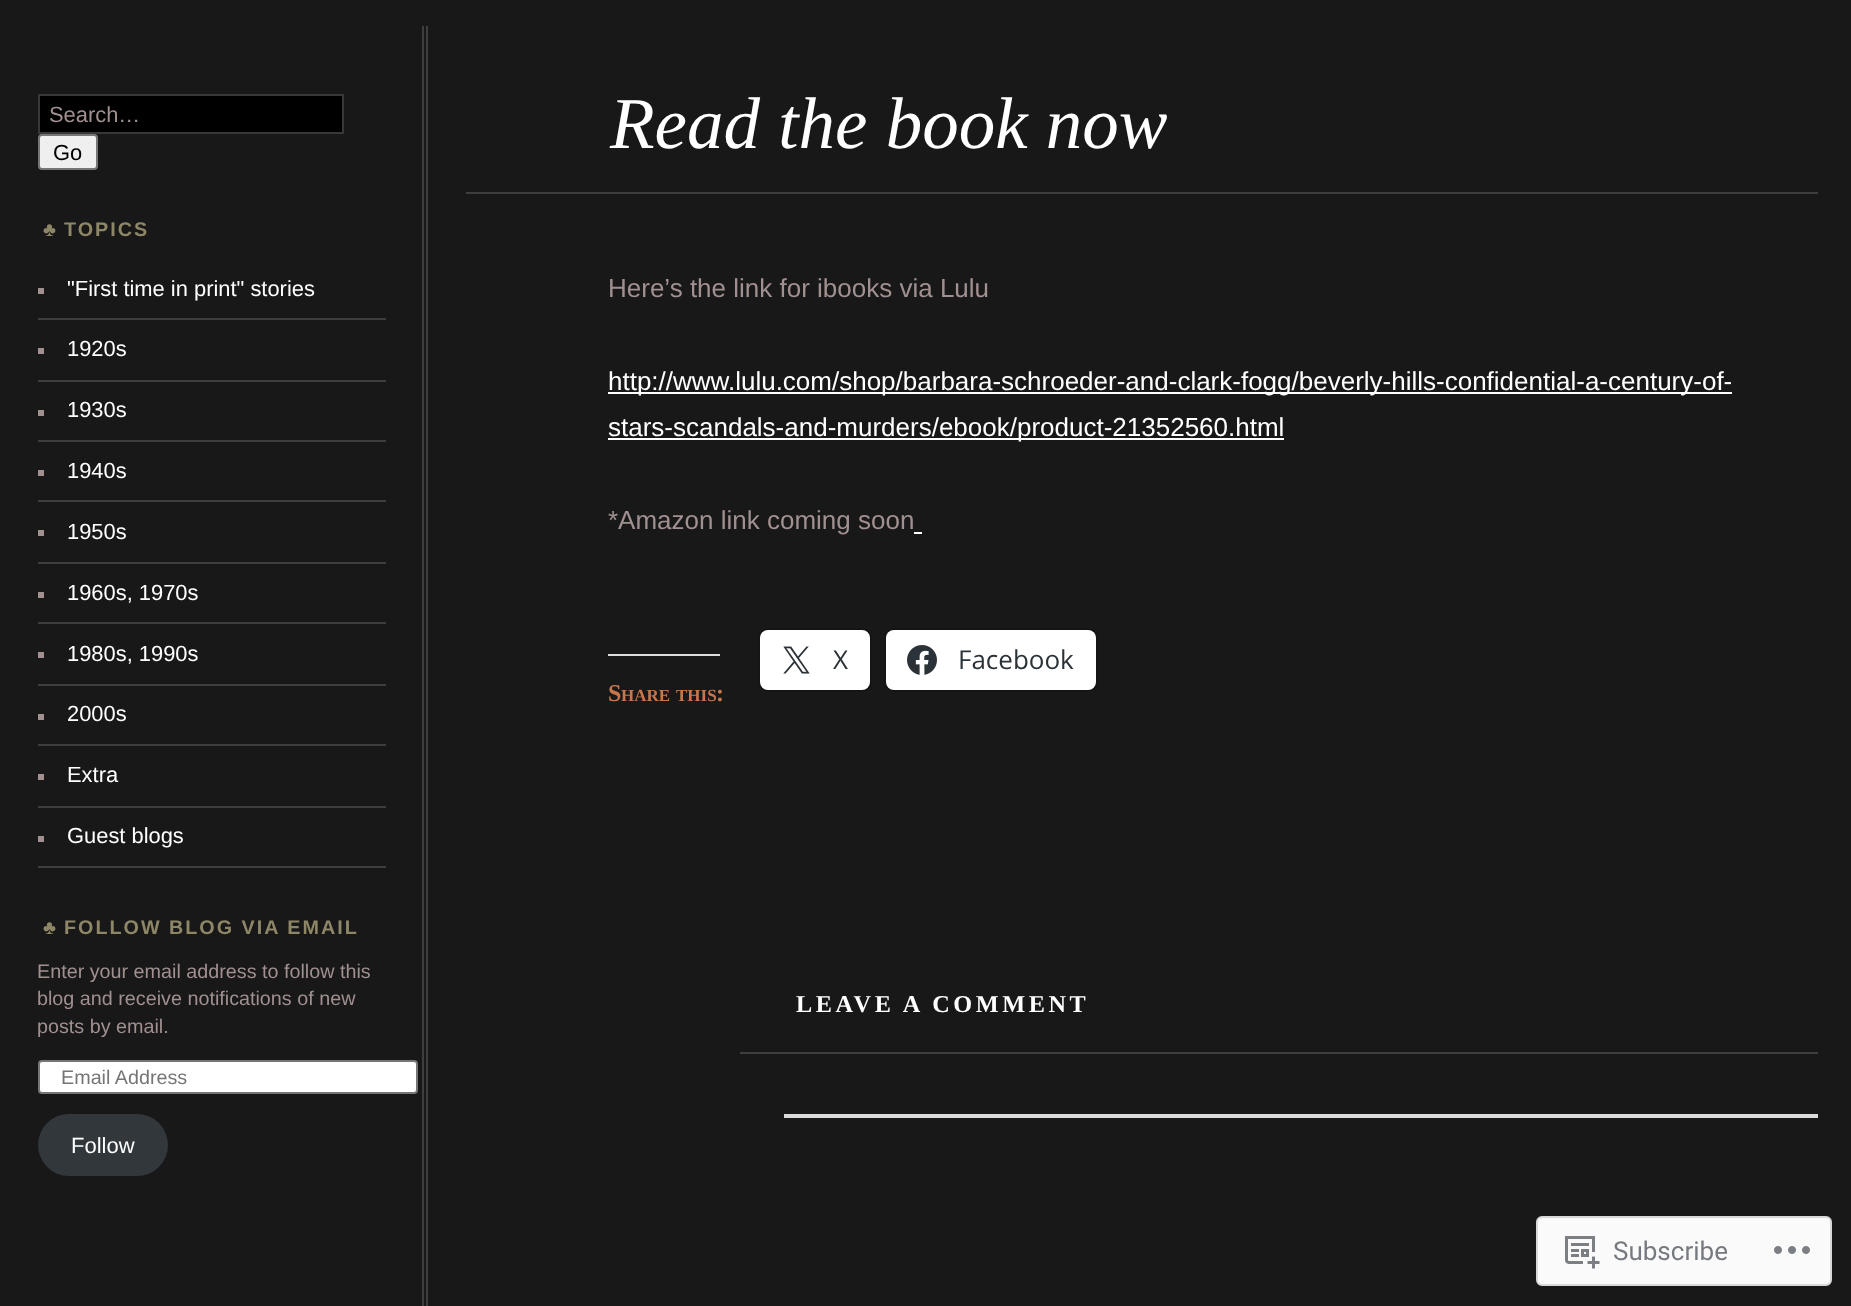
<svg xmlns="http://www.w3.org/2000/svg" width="1851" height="1306">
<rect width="100%" height="100%" fill="#191819"/>
<rect x="39" y="95" width="304" height="38" fill="#000" stroke="#393838" stroke-width="2"/>
<text x="49" y="122" style="font-family:Liberation Sans;font-size:21.9px;fill:#a19090">Search…</text>
<rect x="39" y="135" width="58" height="34" rx="3" fill="#efefef" stroke="#767676" stroke-width="2"/>
<text x="53" y="160" style="font-family:Liberation Sans;font-size:21.9px;fill:#000">Go</text>
<text x="43" y="236" style="font-family:Liberation Sans;font-size:19.75px;font-weight:bold;letter-spacing:2px;fill:#8d8767">♣</text>
<text x="64" y="236" style="font-family:Liberation Sans;font-size:19.75px;font-weight:bold;letter-spacing:2px;fill:#8d8767">TOPICS</text>
<rect x="38" y="318" width="348" height="2" fill="#3e3e3e"/>
<rect x="38" y="288" width="6" height="6" fill="#a19090"/>
<text x="67" y="296" style="font-family:Liberation Sans;font-size:21.9px;fill:#fff">"First time in print" stories</text>
<rect x="38" y="380" width="348" height="2" fill="#3e3e3e"/>
<rect x="38" y="348" width="6" height="6" fill="#a19090"/>
<text x="67" y="356" style="font-family:Liberation Sans;font-size:21.9px;fill:#fff">1920s</text>
<rect x="38" y="440" width="348" height="2" fill="#3e3e3e"/>
<rect x="38" y="410" width="6" height="6" fill="#a19090"/>
<text x="67" y="417" style="font-family:Liberation Sans;font-size:21.9px;fill:#fff">1930s</text>
<rect x="38" y="500" width="348" height="2" fill="#3e3e3e"/>
<rect x="38" y="470" width="6" height="6" fill="#a19090"/>
<text x="67" y="478" style="font-family:Liberation Sans;font-size:21.9px;fill:#fff">1940s</text>
<rect x="38" y="562" width="348" height="2" fill="#3e3e3e"/>
<rect x="38" y="530" width="6" height="6" fill="#a19090"/>
<text x="67" y="539" style="font-family:Liberation Sans;font-size:21.9px;fill:#fff">1950s</text>
<rect x="38" y="622" width="348" height="2" fill="#3e3e3e"/>
<rect x="38" y="592" width="6" height="6" fill="#a19090"/>
<text x="67" y="600" style="font-family:Liberation Sans;font-size:21.9px;fill:#fff">1960s, 1970s</text>
<rect x="38" y="684" width="348" height="2" fill="#3e3e3e"/>
<rect x="38" y="652" width="6" height="6" fill="#a19090"/>
<text x="67" y="661" style="font-family:Liberation Sans;font-size:21.9px;fill:#fff">1980s, 1990s</text>
<rect x="38" y="744" width="348" height="2" fill="#3e3e3e"/>
<rect x="38" y="714" width="6" height="6" fill="#a19090"/>
<text x="67" y="721" style="font-family:Liberation Sans;font-size:21.9px;fill:#fff">2000s</text>
<rect x="38" y="806" width="348" height="2" fill="#3e3e3e"/>
<rect x="38" y="774" width="6" height="6" fill="#a19090"/>
<text x="67" y="782" style="font-family:Liberation Sans;font-size:21.9px;fill:#fff">Extra</text>
<rect x="38" y="866" width="348" height="2" fill="#3e3e3e"/>
<rect x="38" y="836" width="6" height="6" fill="#a19090"/>
<text x="67" y="843" style="font-family:Liberation Sans;font-size:21.9px;fill:#fff">Guest blogs</text>
<text x="43" y="934" style="font-family:Liberation Sans;font-size:19.75px;font-weight:bold;letter-spacing:2px;fill:#8d8767">♣</text>
<text x="64" y="934" style="font-family:Liberation Sans;font-size:19.75px;font-weight:bold;letter-spacing:2px;fill:#8d8767">FOLLOW BLOG VIA EMAIL</text>
<text x="37" y="978" style="font-family:Liberation Sans;font-size:19.75px;fill:#a19090">Enter your email address to follow this</text>
<text x="37" y="1005" style="font-family:Liberation Sans;font-size:19.75px;fill:#a19090">blog and receive notifications of new</text>
<text x="37" y="1033" style="font-family:Liberation Sans;font-size:19.75px;fill:#a19090">posts by email.</text>
<rect x="39" y="1061" width="378" height="32" rx="3" fill="#fff" stroke="#767676" stroke-width="2"/>
<text x="61" y="1084" style="font-family:Liberation Sans;font-size:19.75px;fill:#757575">Email Address</text>
<rect x="38" y="1114" width="130" height="62" rx="31" fill="#32373c"/>
<text x="71" y="1153" style="font-family:Liberation Sans;font-size:22px;fill:#fff">Follow</text>
<rect x="422" y="26" width="2" height="1280" fill="#3e3e3e"/>
<rect x="426" y="26" width="2" height="1280" fill="#3e3e3e"/>
<rect x="466" y="192" width="1352" height="2" fill="#3e3e3e"/>
<text x="610" y="148" style="font-family:Liberation Serif;font-size:73px;font-style:italic;fill:#fff">Read the book now</text>
<text x="608" y="297" style="font-family:Liberation Sans;font-size:26px;fill:#a19090">Here’s the link for ibooks via Lulu</text>
<rect x="608" y="392" width="1124" height="2" fill="#fff"/>
<text x="608" y="390" style="font-family:Liberation Sans;font-size:26px;fill:#fff">http://www.lulu.com/shop/barbara-schroeder-and-clark-fogg/beverly-hills-confidential-a-century-of-</text>
<rect x="608" y="438" width="676" height="2" fill="#fff"/>
<text x="608" y="436" style="font-family:Liberation Sans;font-size:26px;fill:#fff">stars-scandals-and-murders/ebook/product-21352560.html</text>
<text x="608" y="529" style="font-family:Liberation Sans;font-size:26px;fill:#a19090">*Amazon link coming soon</text>
<rect x="914" y="532" width="8" height="2" fill="#fff"/>
<rect x="759" y="629" width="112" height="62" rx="9" fill="none" stroke="#161516" stroke-width="2"/>
<rect x="760" y="630" width="110" height="60" rx="8" fill="#fff"/>
<image x="783" y="646" width="27" height="28" href="media/1.png"/>
<text x="833" y="669" style="font-family:Open Sans;font-size:26px;fill:#2c3338">X</text>
<rect x="885" y="629" width="212" height="62" rx="9" fill="none" stroke="#161516" stroke-width="2"/>
<rect x="886" y="630" width="210" height="60" rx="8" fill="#fff"/>
<image x="907" y="645" width="30" height="30" href="media/2.png"/>
<text x="958" y="669" style="font-family:Open Sans;font-size:26px;fill:#2c3338">Facebook</text>
<rect x="608" y="654" width="112" height="2" fill="#dcdcde"/>
<text x="608" y="701" style="font-family:Liberation Serif;font-size:24px;font-weight:bold;fill:#c9774a">S</text>
<text x="621" y="701" style="font-family:Liberation Serif;font-size:17px;font-weight:bold;fill:#c9774a">HARE</text>
<text x="676" y="701" style="font-family:Liberation Serif;font-size:17px;font-weight:bold;fill:#c9774a">THIS</text>
<text x="716" y="701" style="font-family:Liberation Serif;font-size:24px;font-weight:bold;fill:#c9774a">:</text>
<rect x="740" y="1052" width="1078" height="2" fill="#3e3e3e"/>
<text x="796" y="1012" style="font-family:Liberation Serif;font-size:24.25px;font-weight:bold;letter-spacing:3.6px;fill:#fff">LEAVE A COMMENT</text>
<rect x="784" y="1114" width="1034" height="4" fill="#dcdcde"/>
<rect x="1537" y="1217" width="294" height="68" rx="5" fill="#fafafa" stroke="#d8d8da" stroke-width="2"/>
<image x="1565" y="1236" width="35" height="33" href="media/3.png"/>
<text x="1613" y="1260" style="font-family:Roboto;font-size:26px;fill:#767a80">Subscribe</text>
<image x="1774" y="1246" width="36" height="8" href="media/4.png"/>
</svg>
